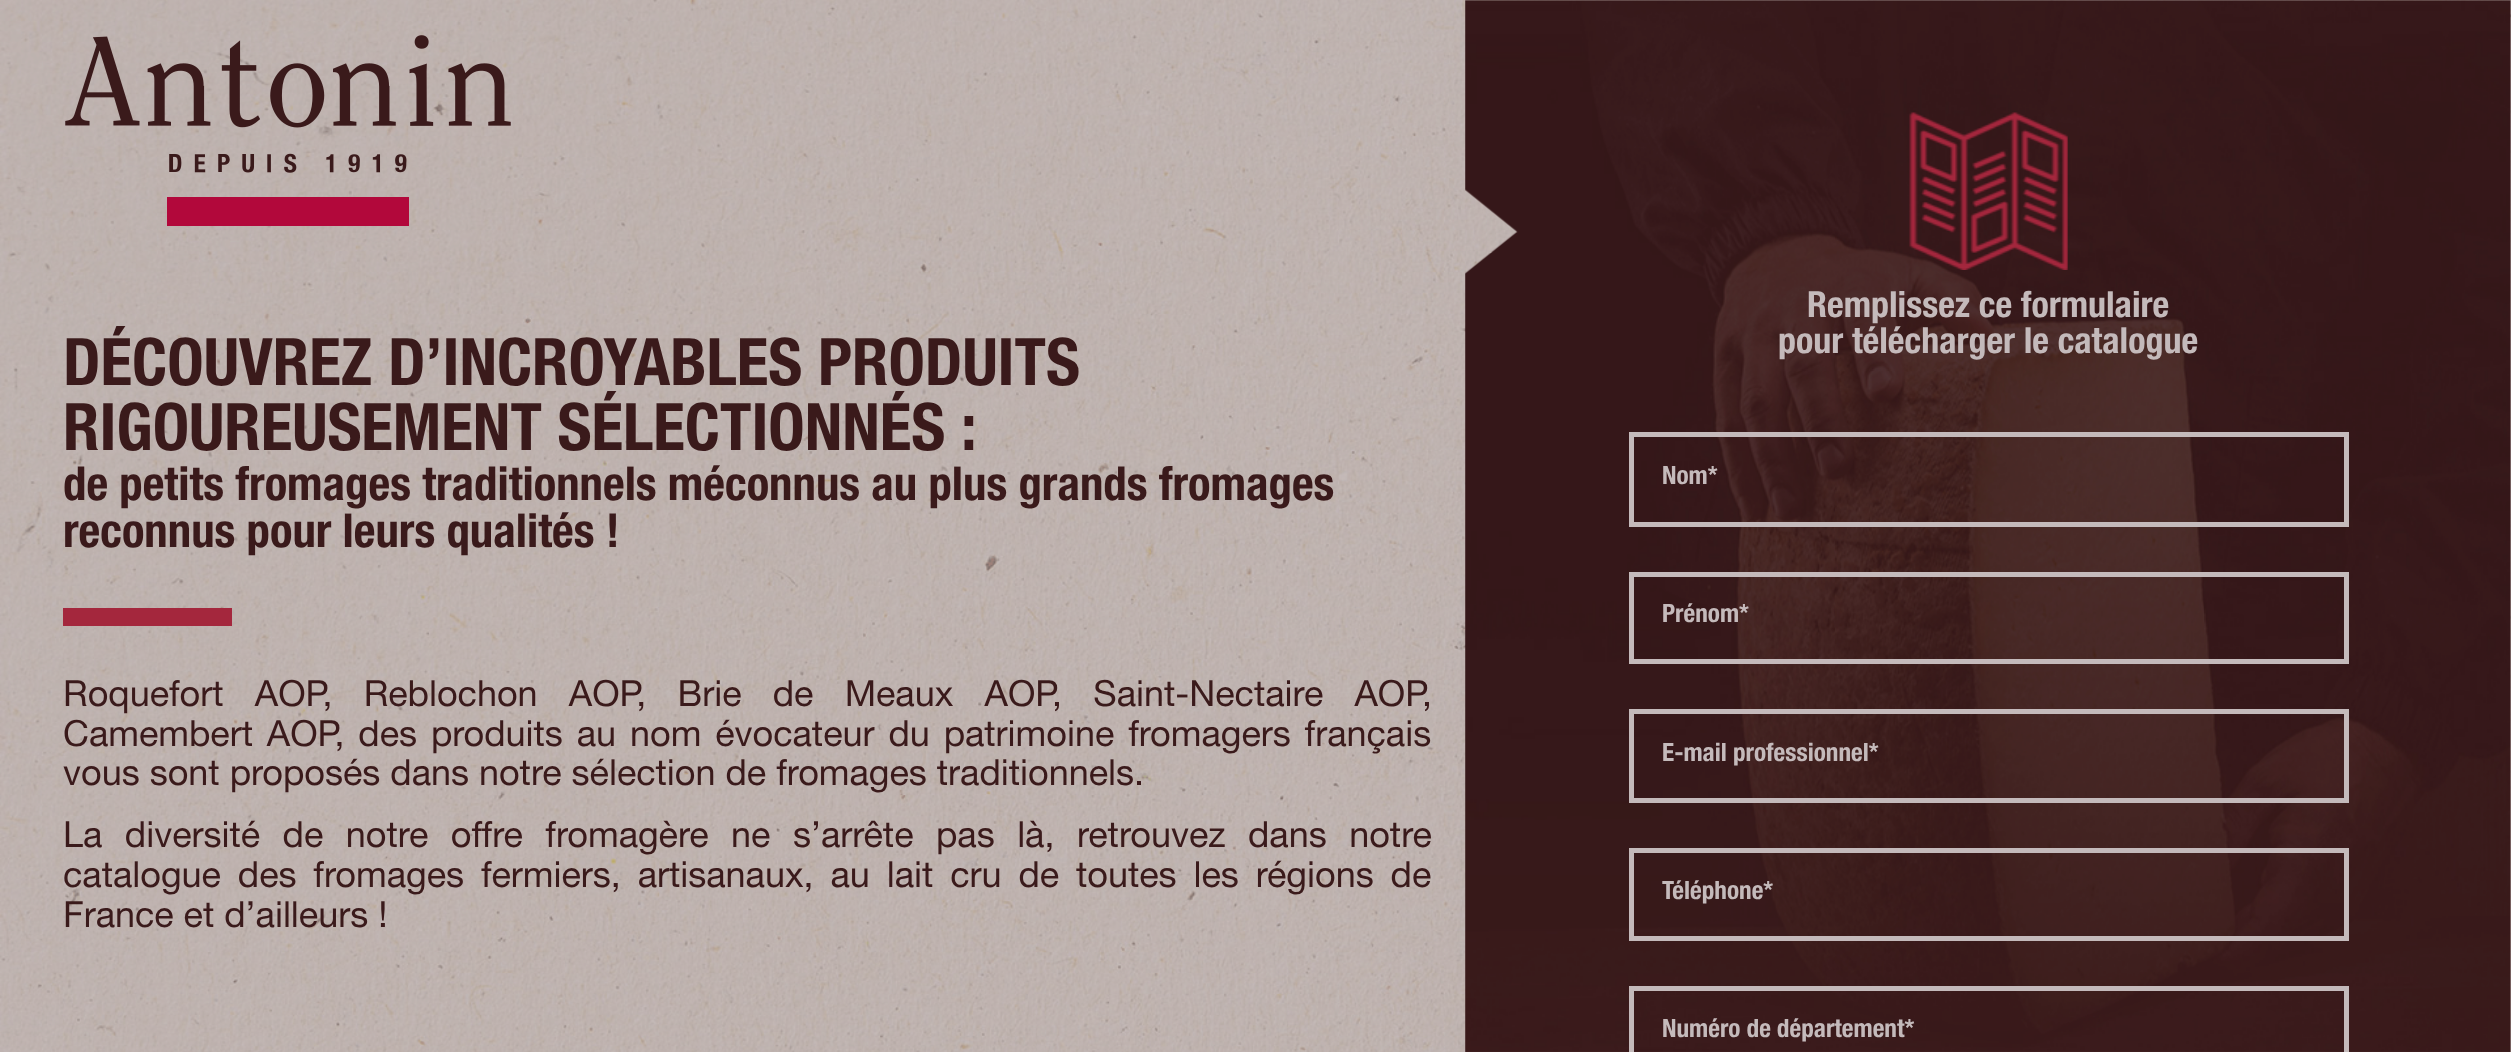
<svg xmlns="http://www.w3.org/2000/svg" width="2511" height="1052">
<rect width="100%" height="100%" fill="#c4babb"/>
<image x="0" y="0" width="2511" height="1052" href="media/2.png"/>
<image x="65" y="35" width="446" height="191" href="media/1.png"/>
<text x="63" y="385" style="font-family:Helvetica Neue;font-size:65.5px;font-weight:bold;fill:#3a1a1b">DÉCOUVREZ D’INCROYABLES PRODUITS</text>
<text x="63" y="450" style="font-family:Helvetica Neue;font-size:65.5px;font-weight:bold;fill:#3a1a1b">RIGOUREUSEMENT SÉLECTIONNÉS :</text>
<text x="63" y="500" style="font-family:Helvetica Neue;font-size:46.8px;font-weight:bold;fill:#3a1a1b">de petits fromages traditionnels méconnus au plus grands fromages</text>
<text x="63" y="547" style="font-family:Helvetica Neue;font-size:46.8px;font-weight:bold;fill:#3a1a1b">reconnus pour leurs qualités !</text>
<rect x="63" y="608" width="169" height="18" fill="#a4273d"/>
<text x="63" y="706" word-spacing="21.25" style="font-family:Helvetica Neue;font-size:36px;fill:#3a1a1b">Roquefort AOP, Reblochon AOP, Brie de Meaux AOP, Saint-Nectaire AOP,</text>
<text x="63" y="746" word-spacing="3.9" style="font-family:Helvetica Neue;font-size:36px;fill:#3a1a1b">Camembert AOP, des produits au nom évocateur du patrimoine fromagers français</text>
<text x="63" y="785" style="font-family:Helvetica Neue;font-size:36px;fill:#3a1a1b">vous sont proposés dans notre sélection de fromages traditionnels.</text>
<text x="63" y="847" word-spacing="12.5" style="font-family:Helvetica Neue;font-size:36px;fill:#3a1a1b">La diversité de notre offre fromagère ne s’arrête pas là, retrouvez dans notre</text>
<text x="63" y="887" word-spacing="6.9" style="font-family:Helvetica Neue;font-size:36px;fill:#3a1a1b">catalogue des fromages fermiers, artisanaux, au lait cru de toutes les régions de</text>
<text x="63" y="927" style="font-family:Helvetica Neue;font-size:36px;fill:#3a1a1b">France et d’ailleurs !</text>
<image x="1465" y="0" width="1046" height="1052" href="media/3.png"/>
<image x="1909" y="112" width="159" height="158" href="media/4.png"/>
<text x="1807" y="317" style="font-family:Helvetica Neue;font-size:36px;font-weight:bold;fill:#c4babb">Remplissez ce formulaire</text>
<text x="1778" y="353" style="font-family:Helvetica Neue;font-size:36px;font-weight:bold;fill:#c4babb">pour télécharger le catalogue</text>
<rect x="1631.5" y="434.5" width="715" height="90" fill="none" stroke="#c4babb" stroke-width="5"/>
<text x="1662" y="484" style="font-family:Helvetica Neue;font-size:25.25px;font-weight:bold;fill:#c4babb">Nom*</text>
<rect x="1631.5" y="574.5" width="715" height="87" fill="none" stroke="#c4babb" stroke-width="5"/>
<text x="1662" y="622" style="font-family:Helvetica Neue;font-size:25.25px;font-weight:bold;fill:#c4babb">Prénom*</text>
<rect x="1631.5" y="711.5" width="715" height="89" fill="none" stroke="#c4babb" stroke-width="5"/>
<text x="1662" y="761" style="font-family:Helvetica Neue;font-size:25.25px;font-weight:bold;fill:#c4babb">E-mail professionnel*</text>
<rect x="1631.5" y="850.5" width="715" height="88" fill="none" stroke="#c4babb" stroke-width="5"/>
<text x="1662" y="899" style="font-family:Helvetica Neue;font-size:25.25px;font-weight:bold;fill:#c4babb">Téléphone*</text>
<path d="M1629 986v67h5v-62h710v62h5v-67z" fill="#c4babb"/>
<text x="1662" y="1037" style="font-family:Helvetica Neue;font-size:25.25px;font-weight:bold;fill:#c4babb">Numéro de département*</text>
</svg>
